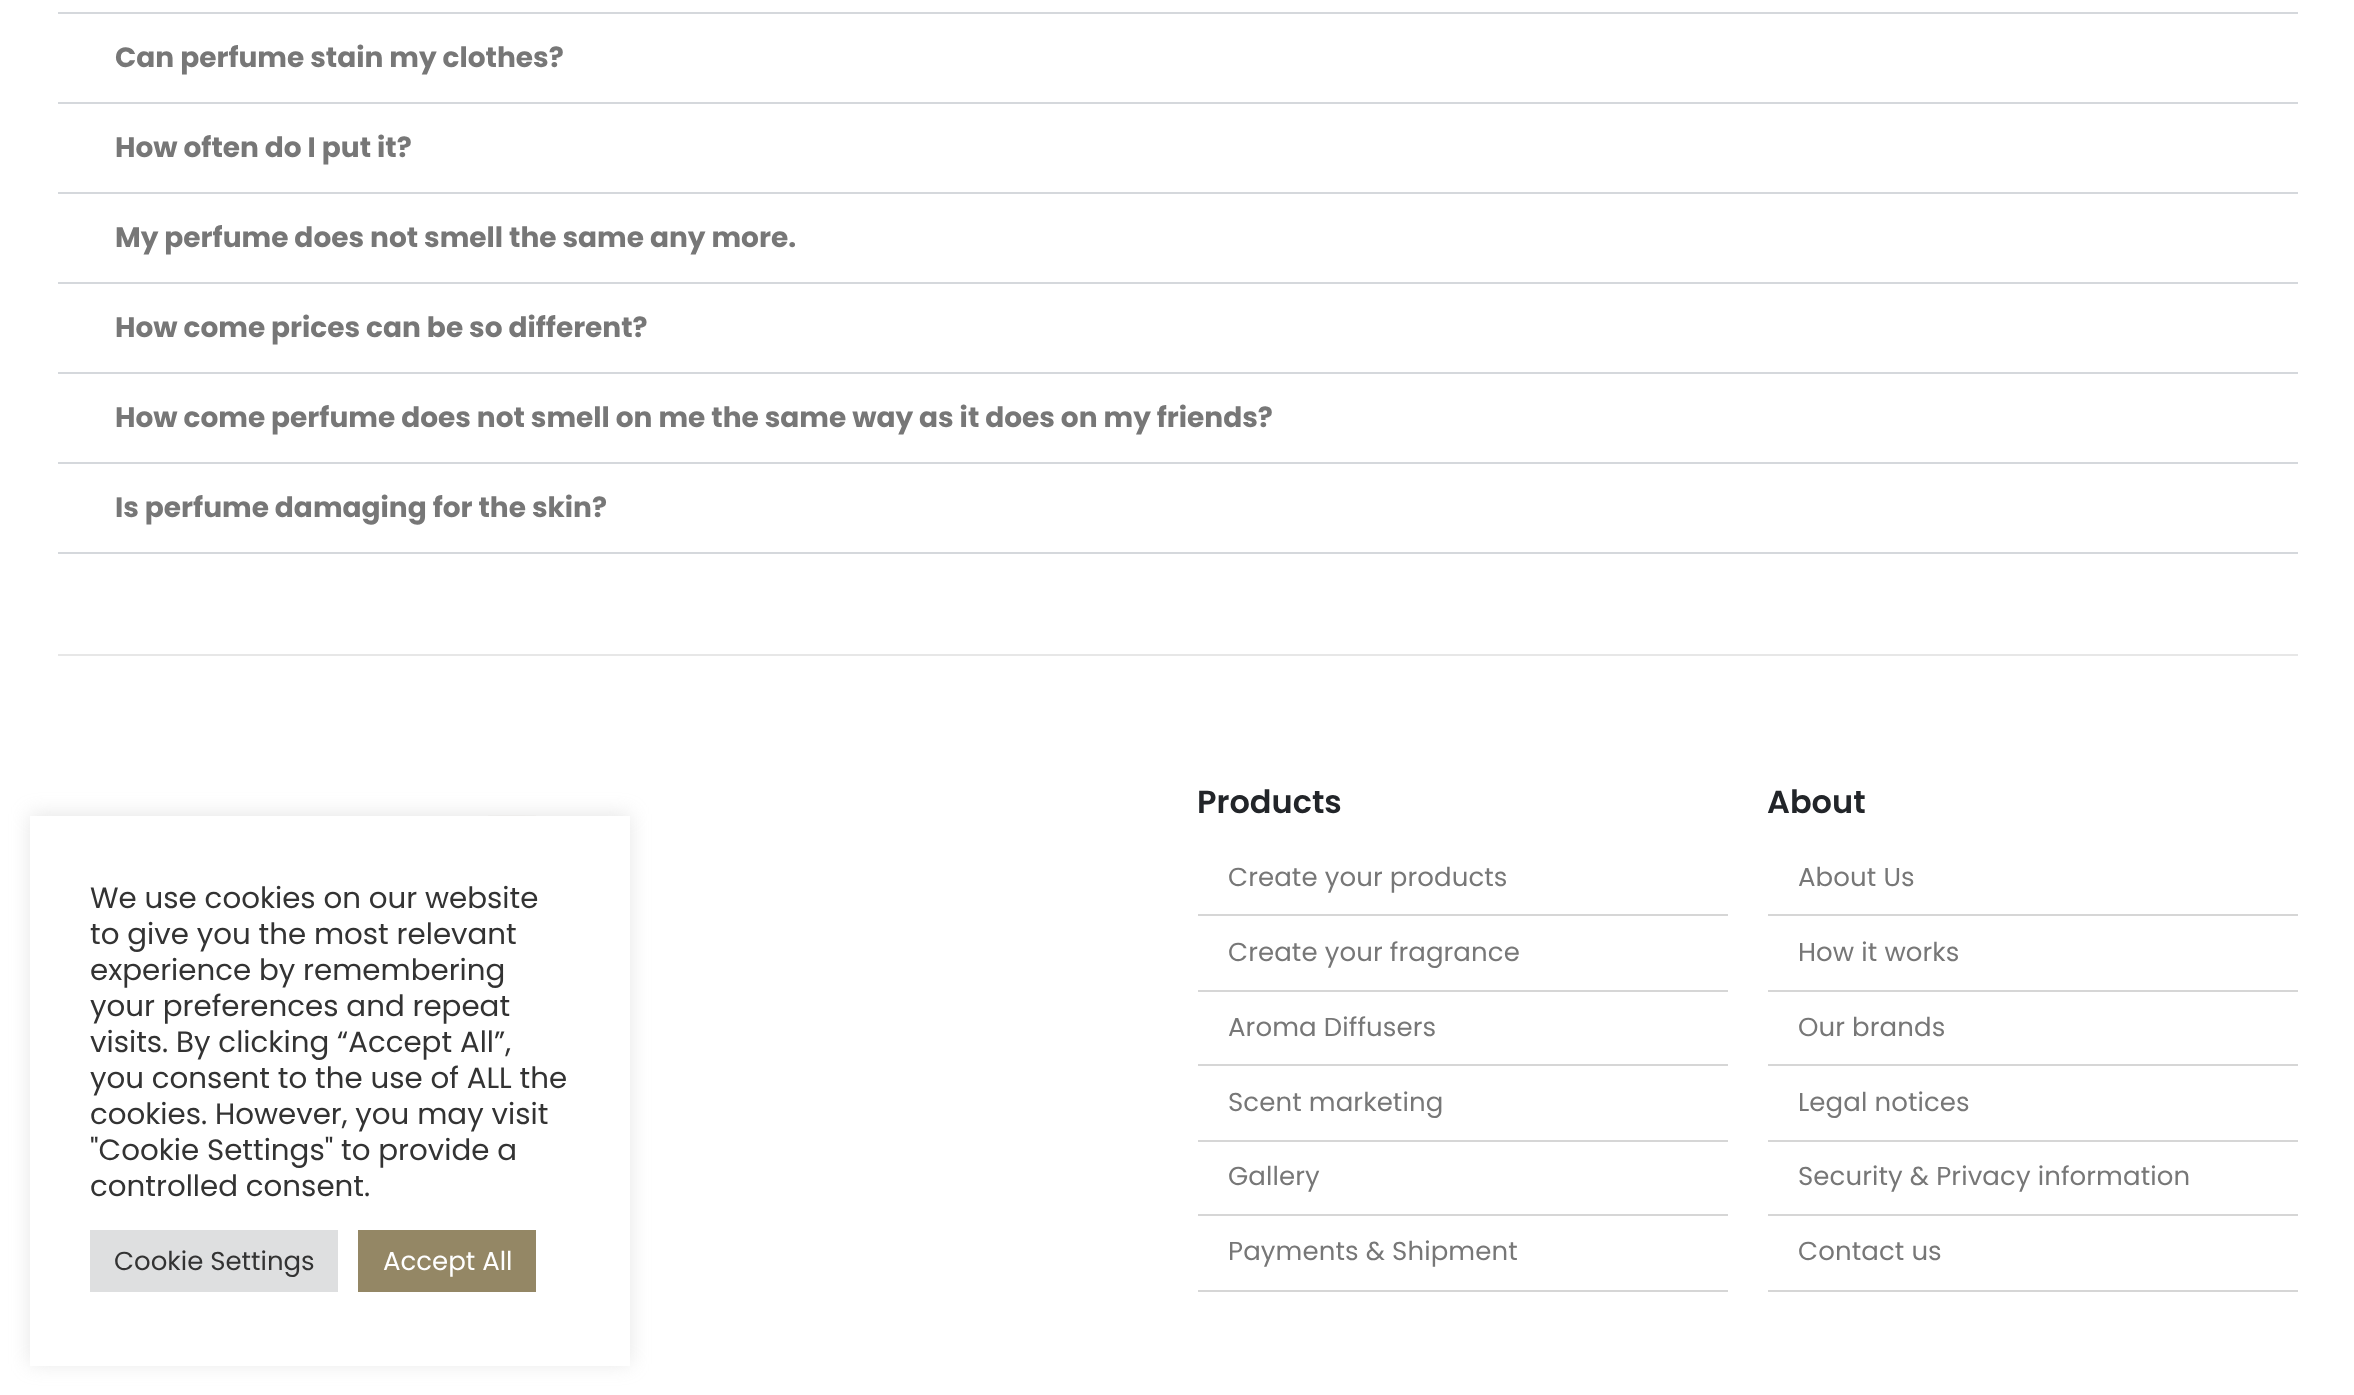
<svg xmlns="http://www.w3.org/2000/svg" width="2354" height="1395">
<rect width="100%" height="100%" fill="#fff"/>
<rect x="58" y="12" width="2240" height="2" fill="#d5d8dc"/>
<rect x="58" y="102" width="2240" height="2" fill="#d5d8dc"/>
<text x="115" y="67" style="font-family:Poppins;font-size:28px;font-weight:bold;fill:#777">Can perfume stain my clothes?</text>
<rect x="58" y="192" width="2240" height="2" fill="#d5d8dc"/>
<text x="115" y="157" style="font-family:Poppins;font-size:28px;font-weight:bold;fill:#777">How often do I put it?</text>
<rect x="58" y="282" width="2240" height="2" fill="#d5d8dc"/>
<text x="115" y="247" style="font-family:Poppins;font-size:28px;font-weight:bold;fill:#777">My perfume does not smell the same any more.</text>
<rect x="58" y="372" width="2240" height="2" fill="#d5d8dc"/>
<text x="115" y="337" style="font-family:Poppins;font-size:28px;font-weight:bold;fill:#777">How come prices can be so different?</text>
<rect x="58" y="462" width="2240" height="2" fill="#d5d8dc"/>
<text x="115" y="427" style="font-family:Poppins;font-size:28px;font-weight:bold;fill:#777">How come perfume does not smell on me the same way as it does on my friends?</text>
<rect x="58" y="552" width="2240" height="2" fill="#d5d8dc"/>
<text x="115" y="517" style="font-family:Poppins;font-size:28px;font-weight:bold;fill:#777">Is perfume damaging for the skin?</text>
<rect x="58" y="654" width="2240" height="2" fill="#e7e7e7"/>
<image x="488" y="815" width="48" height="1" href="media/1.png"/>
<text x="1197" y="813" style="font-family:Poppins;font-size:32px;font-weight:600;fill:#222529">Products</text>
<rect x="1198" y="1290" width="530" height="2" fill="#d6d6d6"/>
<text x="1228" y="886" style="font-family:Poppins;font-size:26px;letter-spacing:0.1px;fill:#777">Create your products</text>
<rect x="1198" y="914" width="530" height="2" fill="#d6d6d6"/>
<text x="1228" y="961" style="font-family:Poppins;font-size:26px;letter-spacing:0.1px;fill:#777">Create your fragrance</text>
<rect x="1198" y="990" width="530" height="2" fill="#d6d6d6"/>
<text x="1228" y="1036" style="font-family:Poppins;font-size:26px;letter-spacing:0.1px;fill:#777">Aroma Diffusers</text>
<rect x="1198" y="1064" width="530" height="2" fill="#d6d6d6"/>
<text x="1228" y="1111" style="font-family:Poppins;font-size:26px;letter-spacing:0.1px;fill:#777">Scent marketing</text>
<rect x="1198" y="1140" width="530" height="2" fill="#d6d6d6"/>
<text x="1228" y="1185" style="font-family:Poppins;font-size:26px;letter-spacing:0.1px;fill:#777">Gallery</text>
<rect x="1198" y="1214" width="530" height="2" fill="#d6d6d6"/>
<text x="1228" y="1260" style="font-family:Poppins;font-size:26px;letter-spacing:0.1px;fill:#777">Payments &amp; Shipment</text>
<text x="1767" y="813" style="font-family:Poppins;font-size:32px;font-weight:600;fill:#222529">About</text>
<rect x="1768" y="1290" width="530" height="2" fill="#d6d6d6"/>
<text x="1798" y="886" style="font-family:Poppins;font-size:26px;letter-spacing:0.1px;fill:#777">About Us</text>
<rect x="1768" y="914" width="530" height="2" fill="#d6d6d6"/>
<text x="1798" y="961" style="font-family:Poppins;font-size:26px;letter-spacing:0.1px;fill:#777">How it works</text>
<rect x="1768" y="990" width="530" height="2" fill="#d6d6d6"/>
<text x="1798" y="1036" style="font-family:Poppins;font-size:26px;letter-spacing:0.1px;fill:#777">Our brands</text>
<rect x="1768" y="1064" width="530" height="2" fill="#d6d6d6"/>
<text x="1798" y="1111" style="font-family:Poppins;font-size:26px;letter-spacing:0.1px;fill:#777">Legal notices</text>
<rect x="1768" y="1140" width="530" height="2" fill="#d6d6d6"/>
<text x="1798" y="1185" style="font-family:Poppins;font-size:26px;letter-spacing:0.1px;fill:#777">Security &amp; Privacy information</text>
<rect x="1768" y="1214" width="530" height="2" fill="#d6d6d6"/>
<text x="1798" y="1260" style="font-family:Poppins;font-size:26px;letter-spacing:0.1px;fill:#777">Contact us</text>
<rect x="30" y="814" width="600" height="550" fill="#acabab4d" filter="blur(10px)"/>
<rect x="30" y="816" width="600" height="550" fill="#fff"/>
<text x="90" y="908" style="font-family:Poppins;font-size:29.3px;fill:#333">We use cookies on our website</text>
<text x="90" y="944" style="font-family:Poppins;font-size:29.3px;fill:#333">to give you the most relevant</text>
<text x="90" y="980" style="font-family:Poppins;font-size:29.3px;fill:#333">experience by remembering</text>
<text x="90" y="1016" style="font-family:Poppins;font-size:29.3px;fill:#333">your preferences and repeat</text>
<text x="90" y="1052" style="font-family:Poppins;font-size:29.3px;fill:#333">visits. By clicking “Accept All”,</text>
<text x="90" y="1088" style="font-family:Poppins;font-size:29.3px;fill:#333">you consent to the use of ALL the</text>
<text x="90" y="1124" style="font-family:Poppins;font-size:29.3px;fill:#333">cookies. However, you may visit</text>
<text x="90" y="1160" style="font-family:Poppins;font-size:29.3px;fill:#333">"Cookie Settings" to provide a</text>
<text x="90" y="1196" style="font-family:Poppins;font-size:29.3px;fill:#333">controlled consent.</text>
<rect x="90" y="1230" width="248" height="62" fill="#dedfe0"/>
<text x="114" y="1270" style="font-family:Poppins;font-size:26px;fill:#333">Cookie Settings</text>
<rect x="358" y="1230" width="178" height="62" fill="#948765"/>
<text x="383" y="1270" style="font-family:Poppins;font-size:26px;fill:#fff">Accept All</text>
</svg>
